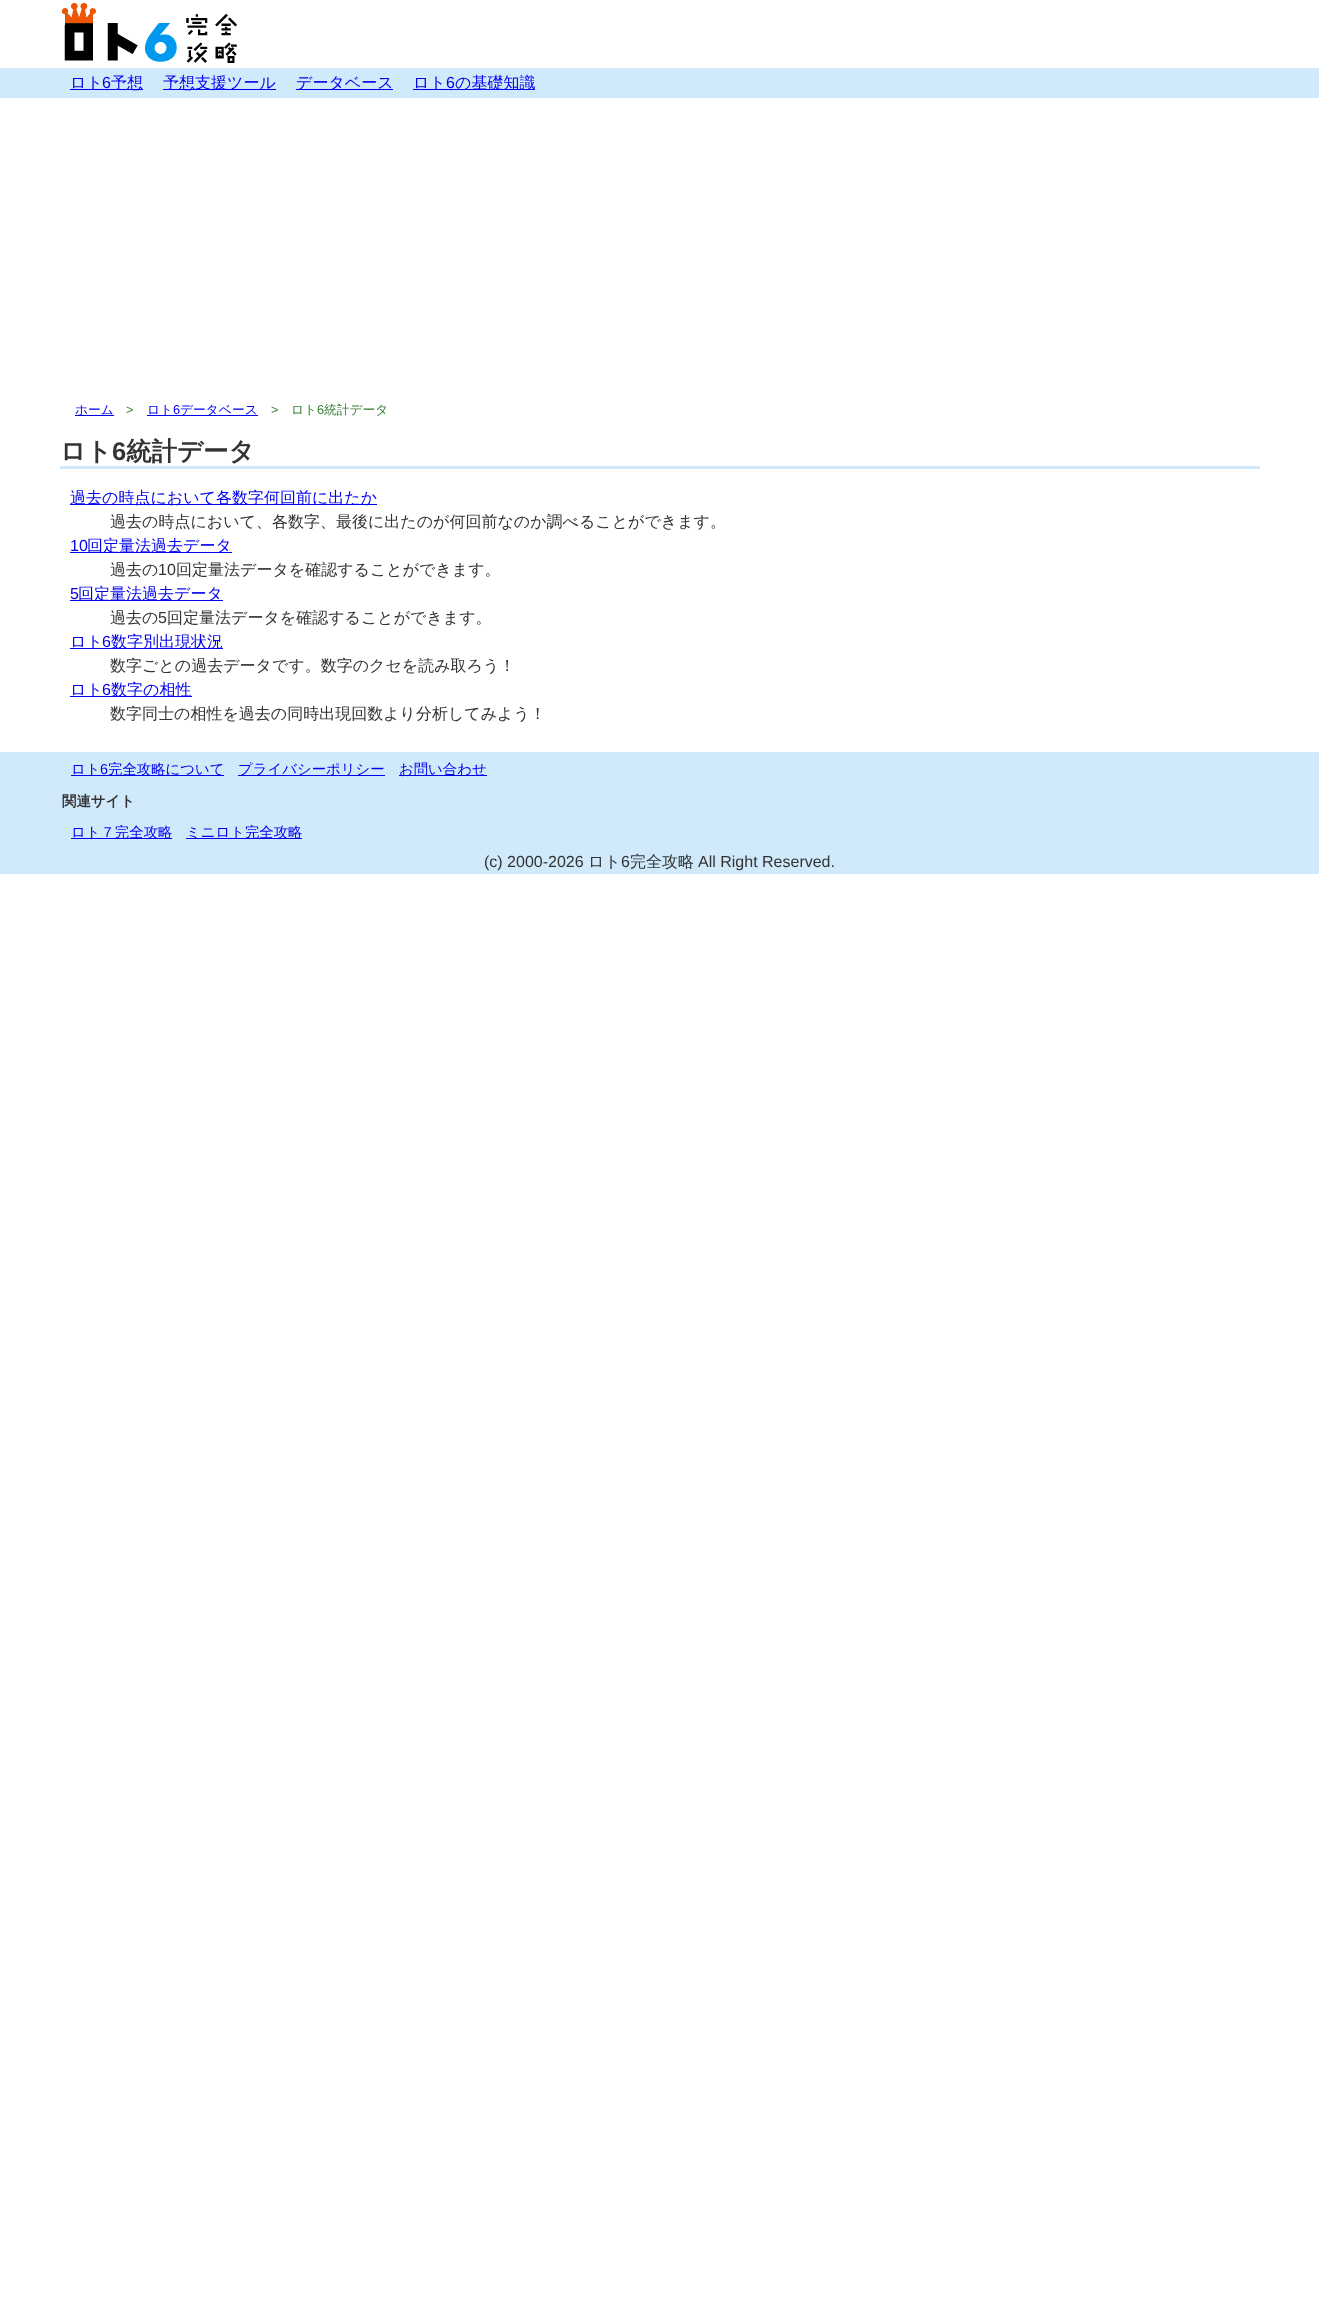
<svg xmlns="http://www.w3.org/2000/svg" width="1319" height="2310">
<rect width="100%" height="100%" fill="#fff"/>
<image x="62" y="3" width="175" height="60" href="media/1.png"/>
<rect y="68" width="1319" height="30" fill="#d0eafb"/>
<rect x="70" y="89" width="73" height="1" fill="#00e"/>
<text x="70" y="88" style="font-family:WenQuanYi Zen Hei;font-size:16px;font-weight:500;fill:#00e">ロト</text>
<text x="102" y="88" style="font-family:Liberation Sans;font-size:16px;fill:#00e">6</text>
<text x="111" y="88" style="font-family:WenQuanYi Zen Hei;font-size:16px;font-weight:500;fill:#00e">予想</text>
<rect x="163" y="89" width="113" height="1" fill="#00e"/>
<text x="163" y="88" style="font-family:WenQuanYi Zen Hei;font-size:16px;font-weight:500;fill:#00e">予想支援ツール</text>
<rect x="296" y="89" width="97" height="1" fill="#00e"/>
<text x="296" y="88" style="font-family:WenQuanYi Zen Hei;font-size:16px;font-weight:500;fill:#00e">データベース</text>
<rect x="413" y="89" width="122" height="1" fill="#00e"/>
<text x="413" y="88" style="font-family:WenQuanYi Zen Hei;font-size:16px;font-weight:500;fill:#00e">ロト</text>
<text x="446" y="88" style="font-family:Liberation Sans;font-size:16px;fill:#00e">6</text>
<text x="455" y="88" style="font-family:WenQuanYi Zen Hei;font-size:16px;font-weight:500;fill:#00e">の基礎知識</text>
<rect x="75" y="415" width="39" height="1" fill="#00e"/>
<text x="75" y="414" style="font-family:WenQuanYi Zen Hei;font-size:12.75px;font-weight:500;fill:#00e">ホーム</text>
<text x="126" y="414" style="font-family:Liberation Sans;font-size:12.75px;fill:#3a803a">&gt;</text>
<rect x="147" y="415" width="111" height="1" fill="#00e"/>
<text x="147" y="414" style="font-family:WenQuanYi Zen Hei;font-size:12.75px;font-weight:500;fill:#00e">ロト</text>
<text x="173" y="414" style="font-family:Liberation Sans;font-size:12.75px;fill:#00e">6</text>
<text x="180" y="414" style="font-family:WenQuanYi Zen Hei;font-size:12.75px;font-weight:500;fill:#00e">データベース</text>
<text x="271" y="414" style="font-family:Liberation Sans;font-size:12.75px;fill:#3a803a">&gt;</text>
<text x="291" y="414" style="font-family:WenQuanYi Zen Hei;font-size:12.75px;font-weight:500;fill:#3a803a">ロト</text>
<text x="317" y="414" style="font-family:Liberation Sans;font-size:12.75px;fill:#3a803a">6</text>
<text x="324" y="414" style="font-family:WenQuanYi Zen Hei;font-size:12.75px;font-weight:500;fill:#3a803a">統計データ</text>
<rect x="60" y="466" width="1200" height="3" fill="#d0eafb"/>
<text x="60" y="460" style="font-family:WenQuanYi Zen Hei;font-size:25.5px;font-weight:bold;fill:#333">ロト</text>
<text x="112" y="460" style="font-family:Liberation Sans;font-size:25.5px;font-weight:bold;fill:#333">6</text>
<text x="126" y="460" style="font-family:WenQuanYi Zen Hei;font-size:25.5px;font-weight:bold;fill:#333">統計データ</text>
<rect x="70" y="504" width="307" height="1" fill="#00e"/>
<text x="70" y="503" style="font-family:WenQuanYi Zen Hei;font-size:16px;font-weight:500;fill:#00e">過去の時点において各数字何回前に出たか</text>
<text x="110" y="527" style="font-family:WenQuanYi Zen Hei;font-size:16px;font-weight:500;fill:#333">過去の時点において、各数字、最後に出たのが何回前なのか調べることができます。</text>
<text x="70" y="551" style="font-family:Liberation Sans;font-size:16px;fill:#00e">10</text>
<rect x="70" y="552" width="162" height="1" fill="#00e"/>
<text x="87" y="551" style="font-family:WenQuanYi Zen Hei;font-size:16px;font-weight:500;fill:#00e">回定量法過去データ</text>
<text x="110" y="575" style="font-family:WenQuanYi Zen Hei;font-size:16px;font-weight:500;fill:#333">過去の</text>
<text x="158" y="575" style="font-family:Liberation Sans;font-size:16px;fill:#333">10</text>
<text x="176" y="575" style="font-family:WenQuanYi Zen Hei;font-size:16px;font-weight:500;fill:#333">回定量法データを確認することができます。</text>
<text x="70" y="599" style="font-family:Liberation Sans;font-size:16px;fill:#00e">5</text>
<rect x="70" y="600" width="153" height="1" fill="#00e"/>
<text x="78" y="599" style="font-family:WenQuanYi Zen Hei;font-size:16px;font-weight:500;fill:#00e">回定量法過去データ</text>
<text x="110" y="623" style="font-family:WenQuanYi Zen Hei;font-size:16px;font-weight:500;fill:#333">過去の</text>
<text x="158" y="623" style="font-family:Liberation Sans;font-size:16px;fill:#333">5</text>
<text x="167" y="623" style="font-family:WenQuanYi Zen Hei;font-size:16px;font-weight:500;fill:#333">回定量法データを確認することができます。</text>
<rect x="70" y="648" width="153" height="1" fill="#00e"/>
<text x="70" y="647" style="font-family:WenQuanYi Zen Hei;font-size:16px;font-weight:500;fill:#00e">ロト</text>
<text x="102" y="647" style="font-family:Liberation Sans;font-size:16px;fill:#00e">6</text>
<text x="111" y="647" style="font-family:WenQuanYi Zen Hei;font-size:16px;font-weight:500;fill:#00e">数字別出現状況</text>
<text x="110" y="671" style="font-family:WenQuanYi Zen Hei;font-size:16px;font-weight:500;fill:#333">数字ごとの過去データです。数字のクセを読み取ろう！</text>
<rect x="70" y="696" width="122" height="1" fill="#00e"/>
<text x="70" y="695" style="font-family:WenQuanYi Zen Hei;font-size:16px;font-weight:500;fill:#00e">ロト</text>
<text x="102" y="695" style="font-family:Liberation Sans;font-size:16px;fill:#00e">6</text>
<text x="111" y="695" style="font-family:WenQuanYi Zen Hei;font-size:16px;font-weight:500;fill:#00e">数字の相性</text>
<text x="110" y="719" style="font-family:WenQuanYi Zen Hei;font-size:16px;font-weight:500;fill:#333">数字同士の相性を過去の同時出現回数より分析してみよう！</text>
<rect y="752" width="1319" height="122" fill="#d0eafb"/>
<rect x="71" y="775" width="153" height="1" fill="#00e"/>
<text x="71" y="774" style="font-family:WenQuanYi Zen Hei;font-size:14.4px;font-weight:500;fill:#00e">ロト</text>
<text x="100" y="774" style="font-family:Liberation Sans;font-size:14.4px;fill:#00e">6</text>
<text x="108" y="774" style="font-family:WenQuanYi Zen Hei;font-size:14.4px;font-weight:500;fill:#00e">完全攻略について</text>
<rect x="238" y="775" width="147" height="1" fill="#00e"/>
<text x="238" y="774" style="font-family:WenQuanYi Zen Hei;font-size:14.4px;font-weight:500;fill:#00e">プライバシーポリシー</text>
<rect x="399" y="775" width="88" height="1" fill="#00e"/>
<text x="399" y="774" style="font-family:WenQuanYi Zen Hei;font-size:14.4px;font-weight:500;fill:#00e">お問い合わせ</text>
<text x="62" y="806" style="font-family:WenQuanYi Zen Hei;font-size:14.4px;font-weight:bold;fill:#333">関連サイト</text>
<rect x="71" y="838" width="101" height="1" fill="#00e"/>
<text x="71" y="837" style="font-family:WenQuanYi Zen Hei;font-size:14.4px;font-weight:500;fill:#00e">ロト７完全攻略</text>
<rect x="186" y="838" width="116" height="1" fill="#00e"/>
<text x="186" y="837" style="font-family:WenQuanYi Zen Hei;font-size:14.4px;font-weight:500;fill:#00e">ミニロト完全攻略</text>
<text x="484" y="867" style="font-family:Liberation Sans;font-size:16px;fill:#333">(c) 2000-2026</text>
<text x="588" y="867" style="font-family:WenQuanYi Zen Hei;font-size:16px;font-weight:500;fill:#333">ロト</text>
<text x="621" y="867" style="font-family:Liberation Sans;font-size:16px;fill:#333">6</text>
<text x="630" y="867" style="font-family:WenQuanYi Zen Hei;font-size:16px;font-weight:500;fill:#333">完全攻略</text>
<text x="698" y="867" style="font-family:Liberation Sans;font-size:16px;fill:#333">All Right Reserved.</text>
</svg>
